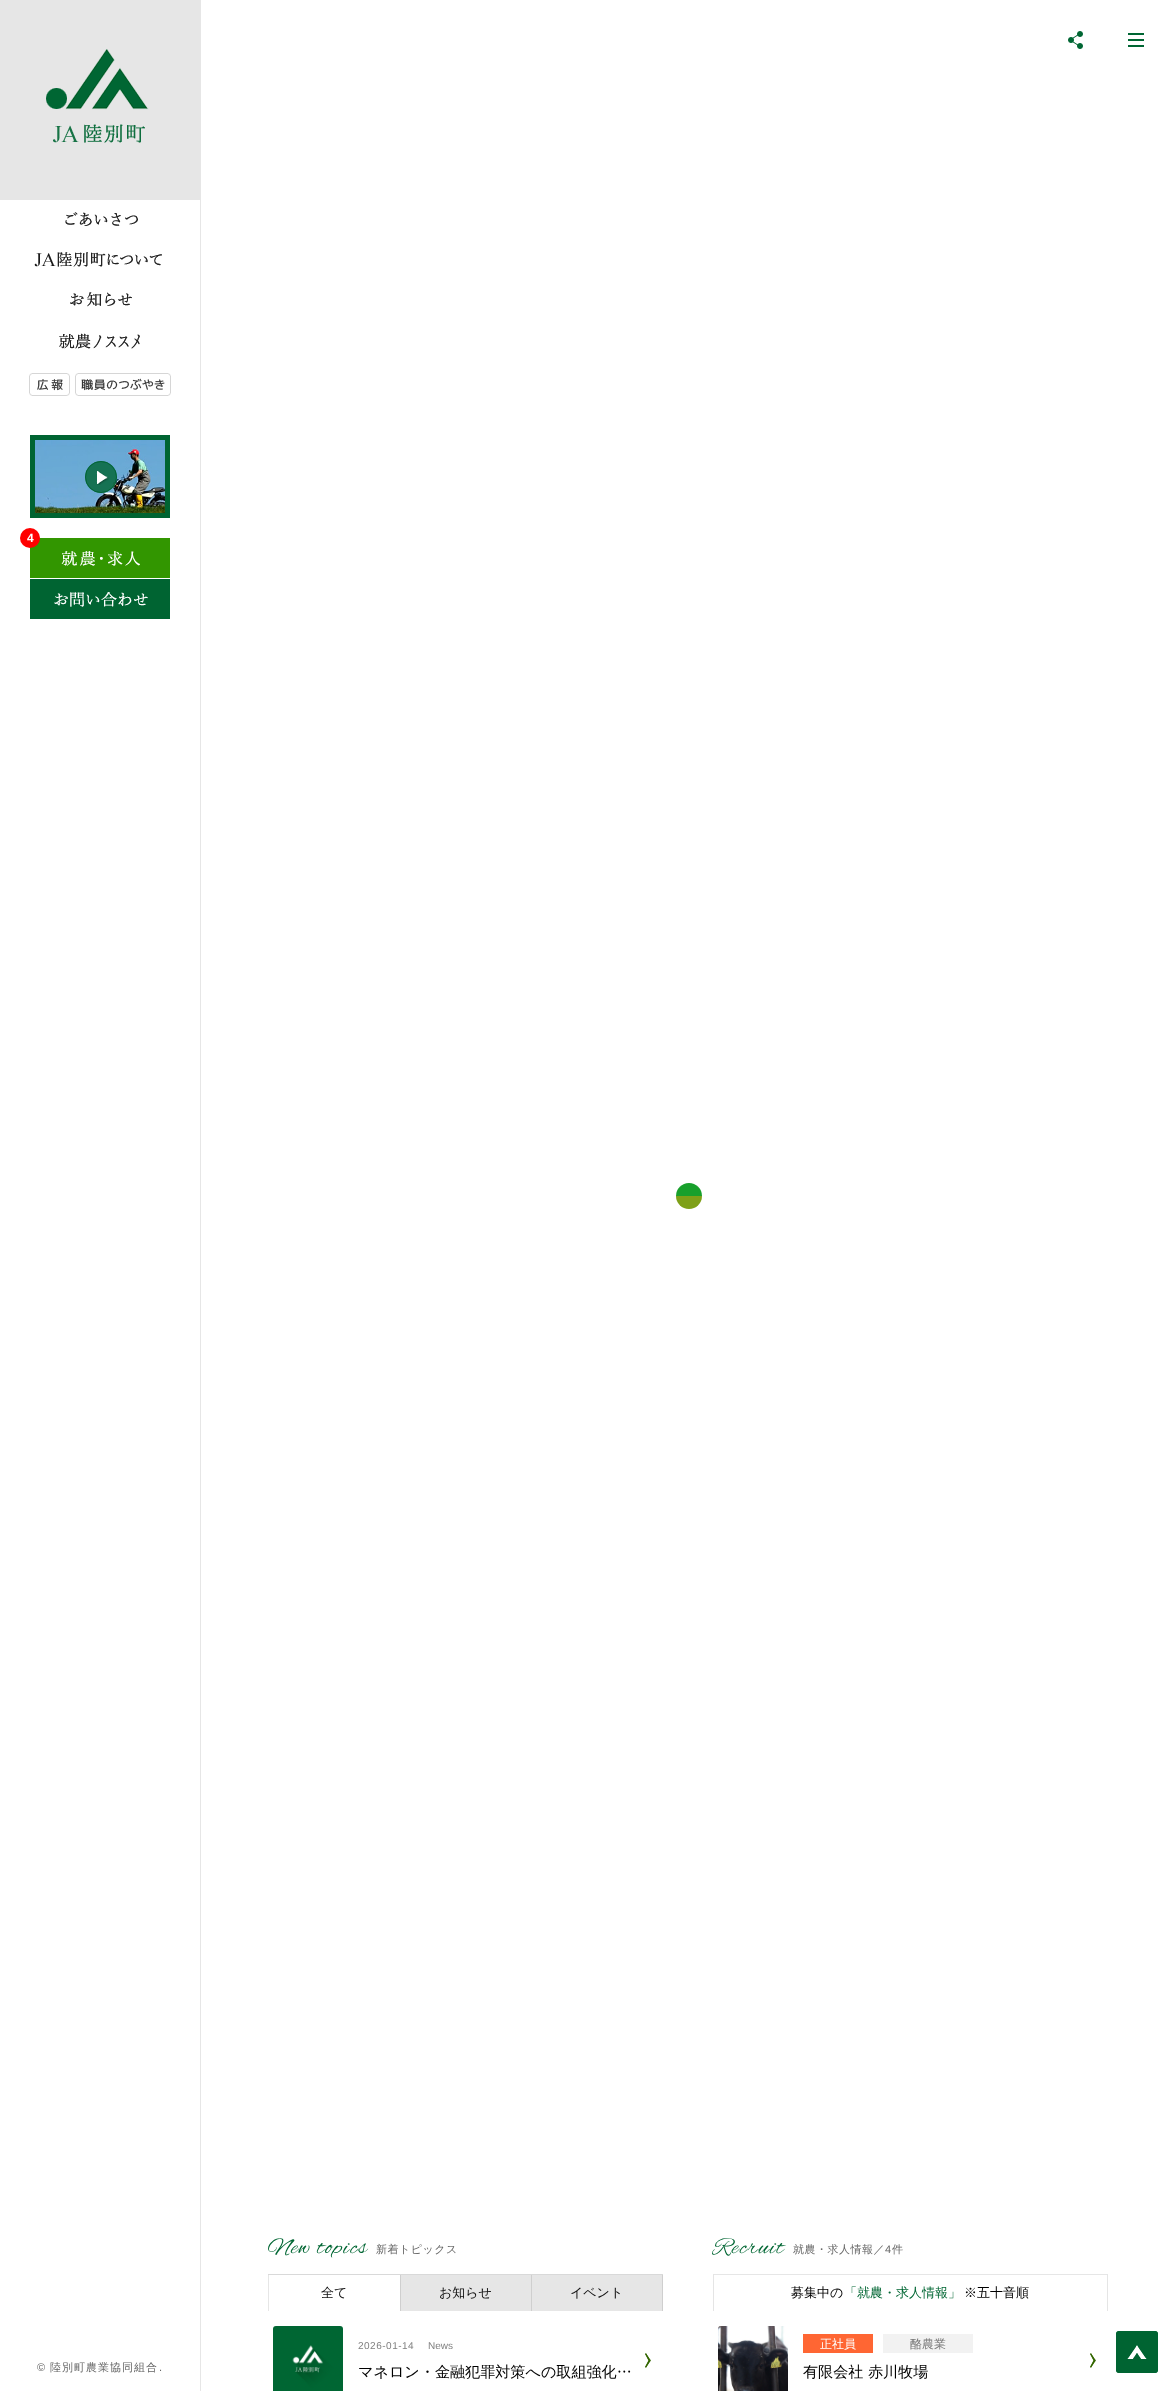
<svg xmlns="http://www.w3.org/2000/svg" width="1176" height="2391">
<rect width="100%" height="100%" fill="#fff"/>
<rect width="200" height="200" fill="#e6e6e6"/>
<image x="46" y="49" width="103" height="94" href="media/1.png"/>
<image x="1068" y="31" width="15" height="18" href="media/2.png"/>
<rect x="1128" y="39" width="16" height="2" fill="#063"/>
<rect x="1128" y="33" width="16" height="2" fill="#063"/>
<rect x="1128" y="45" width="16" height="2" fill="#063"/>
<image x="65" y="212" width="73" height="14" href="media/3.png"/>
<image x="34" y="252" width="128" height="15" href="media/4.png"/>
<image x="70" y="292" width="62" height="15" href="media/5.png"/>
<image x="59" y="333" width="81" height="16" href="media/6.png"/>
<image x="29" y="373" width="41" height="23" href="media/7.png"/>
<image x="75" y="373" width="96" height="23" href="media/8.png"/>
<rect x="32.5" y="437.5" width="135" height="78" fill="none" stroke="#006432" stroke-width="5"/>
<image x="35" y="440" width="130" height="73" href="media/9.png"/>
<circle cx="101" cy="477" r="16" fill="#006432cc"/>
<image x="96" y="471" width="13" height="14" href="media/10.png"/>
<circle cx="101" cy="477" r="15.5" fill="none" stroke="#006432e6"/>
<rect x="30" y="538" width="140" height="40" fill="#329600"/>
<image x="61" y="551" width="79" height="15" href="media/11.png"/>
<circle cx="30" cy="538" r="10" fill="#f00"/>
<text x="27" y="542" style="font-family:Liberation Sans;font-size:12px;font-weight:bold;fill:#fff">4</text>
<rect x="30" y="579" width="140" height="40" fill="#006432"/>
<image x="54" y="592" width="94" height="15" href="media/12.png"/>
<image x="676" y="1183" width="26" height="26" href="media/13.png"/>
<rect x="200" width="1" height="2391" fill="#e6e6e6"/>
<text x="37" y="2371" style="font-family:Liberation Sans;font-size:11px;letter-spacing:1px;fill:#666">©</text>
<text x="50" y="2371" style="font-family:WenQuanYi Zen Hei;font-size:11px;font-weight:500;letter-spacing:1px;fill:#666">陸別町農業協同組合</text>
<text x="159" y="2371" style="font-family:Liberation Sans;font-size:11px;letter-spacing:1px;fill:#666">.</text>
<rect x="1116" y="2331" width="42" height="42" rx="3" fill="#006432"/>
<image x="1127" y="2345" width="20" height="14" href="media/14.png"/>
<rect x="1116.5" y="2331.5" width="41" height="41" rx="2.5" fill="none" stroke="#006432"/>
<text x="268" y="2253" style="font-family:Alex Brush;font-size:24px;letter-spacing:1.25px;fill:#063">New topics</text>
<text x="376" y="2253" style="font-family:WenQuanYi Zen Hei;font-size:11px;font-weight:500;letter-spacing:0.5px;fill:#666">新着トピックス</text>
<rect x="268" y="2274" width="395" height="1" fill="#d9d9d9"/>
<rect x="268" y="2275" width="1" height="36" fill="#e6e6e6"/>
<text x="321" y="2297" style="font-family:WenQuanYi Zen Hei;font-size:13px;font-weight:500;fill:#111">全て</text>
<rect x="401" y="2275" width="130" height="36" fill="#e6e6e6"/>
<rect x="400" y="2275" width="1" height="36" fill="#cfcfcf"/>
<text x="439" y="2297" style="font-family:WenQuanYi Zen Hei;font-size:13px;font-weight:500;fill:#111">お知らせ</text>
<rect x="532" y="2275" width="130" height="36" fill="#e6e6e6"/>
<rect x="531" y="2275" width="1" height="36" fill="#cfcfcf"/>
<text x="570" y="2297" style="font-family:WenQuanYi Zen Hei;font-size:13px;font-weight:500;fill:#111">イベント</text>
<rect x="662" y="2275" width="1" height="36" fill="#cfcfcf"/>
<image x="645" y="2353" width="6" height="15" href="media/15.png"/>
<image x="273" y="2326" width="70" height="65" href="media/16.png"/>
<text x="358" y="2349" style="font-family:Liberation Sans;font-size:10px;letter-spacing:0.5px;fill:#808080">2026-01-14</text>
<text x="428" y="2349" style="font-family:Liberation Sans;font-size:10px;fill:#808080">News</text>
<text x="358" y="2377" style="font-family:WenQuanYi Zen Hei;font-size:15.1px;font-weight:500;fill:#000">マネロン・金融犯罪対策への取組強化…</text>
<text x="713" y="2253" style="font-family:Alex Brush;font-size:24px;letter-spacing:1.25px;fill:#063">Recruit</text>
<text x="793" y="2253" style="font-family:WenQuanYi Zen Hei;font-size:11px;font-weight:500;letter-spacing:0.5px;fill:#666">就農・求人情報／</text>
<text x="885" y="2253" style="font-family:Liberation Sans;font-size:11px;letter-spacing:0.5px;fill:#666">4</text>
<text x="892" y="2253" style="font-family:WenQuanYi Zen Hei;font-size:11px;font-weight:500;letter-spacing:0.5px;fill:#666">件</text>
<path d="M713 2274h395l-1 1h-393z" fill="#e6e6e6"/>
<path d="M1108 2274v37h-1v-36z" fill="#0000001a"/>
<path d="M713 2311v-37l1 1v36z" fill="#0000001a"/>
<text x="791" y="2297" style="font-family:WenQuanYi Zen Hei;font-size:13px;font-weight:500;fill:#000">募集中の</text>
<text x="844" y="2297" style="font-family:WenQuanYi Zen Hei;font-size:13px;font-weight:500;fill:#063">「就農・求人情報」</text>
<text x="964" y="2297" style="font-family:WenQuanYi Zen Hei;font-size:13px;font-weight:500;fill:#000">※五十音順</text>
<image x="1090" y="2353" width="6" height="15" href="media/15.png"/>
<image x="718" y="2326" width="70" height="65" href="media/17.png"/>
<rect x="803" y="2334" width="70" height="19" fill="#f63"/>
<text x="820" y="2348" style="font-family:WenQuanYi Zen Hei;font-size:12px;font-weight:500;fill:#fff">正社員</text>
<rect x="883" y="2334" width="90" height="19" fill="#f2f2f2"/>
<text x="910" y="2348" style="font-family:WenQuanYi Zen Hei;font-size:12px;font-weight:500;fill:#797979">酪農業</text>
<text x="803" y="2377" style="font-family:WenQuanYi Zen Hei;font-size:15.1px;font-weight:500;fill:#000">有限会社 赤川牧場</text>
</svg>
